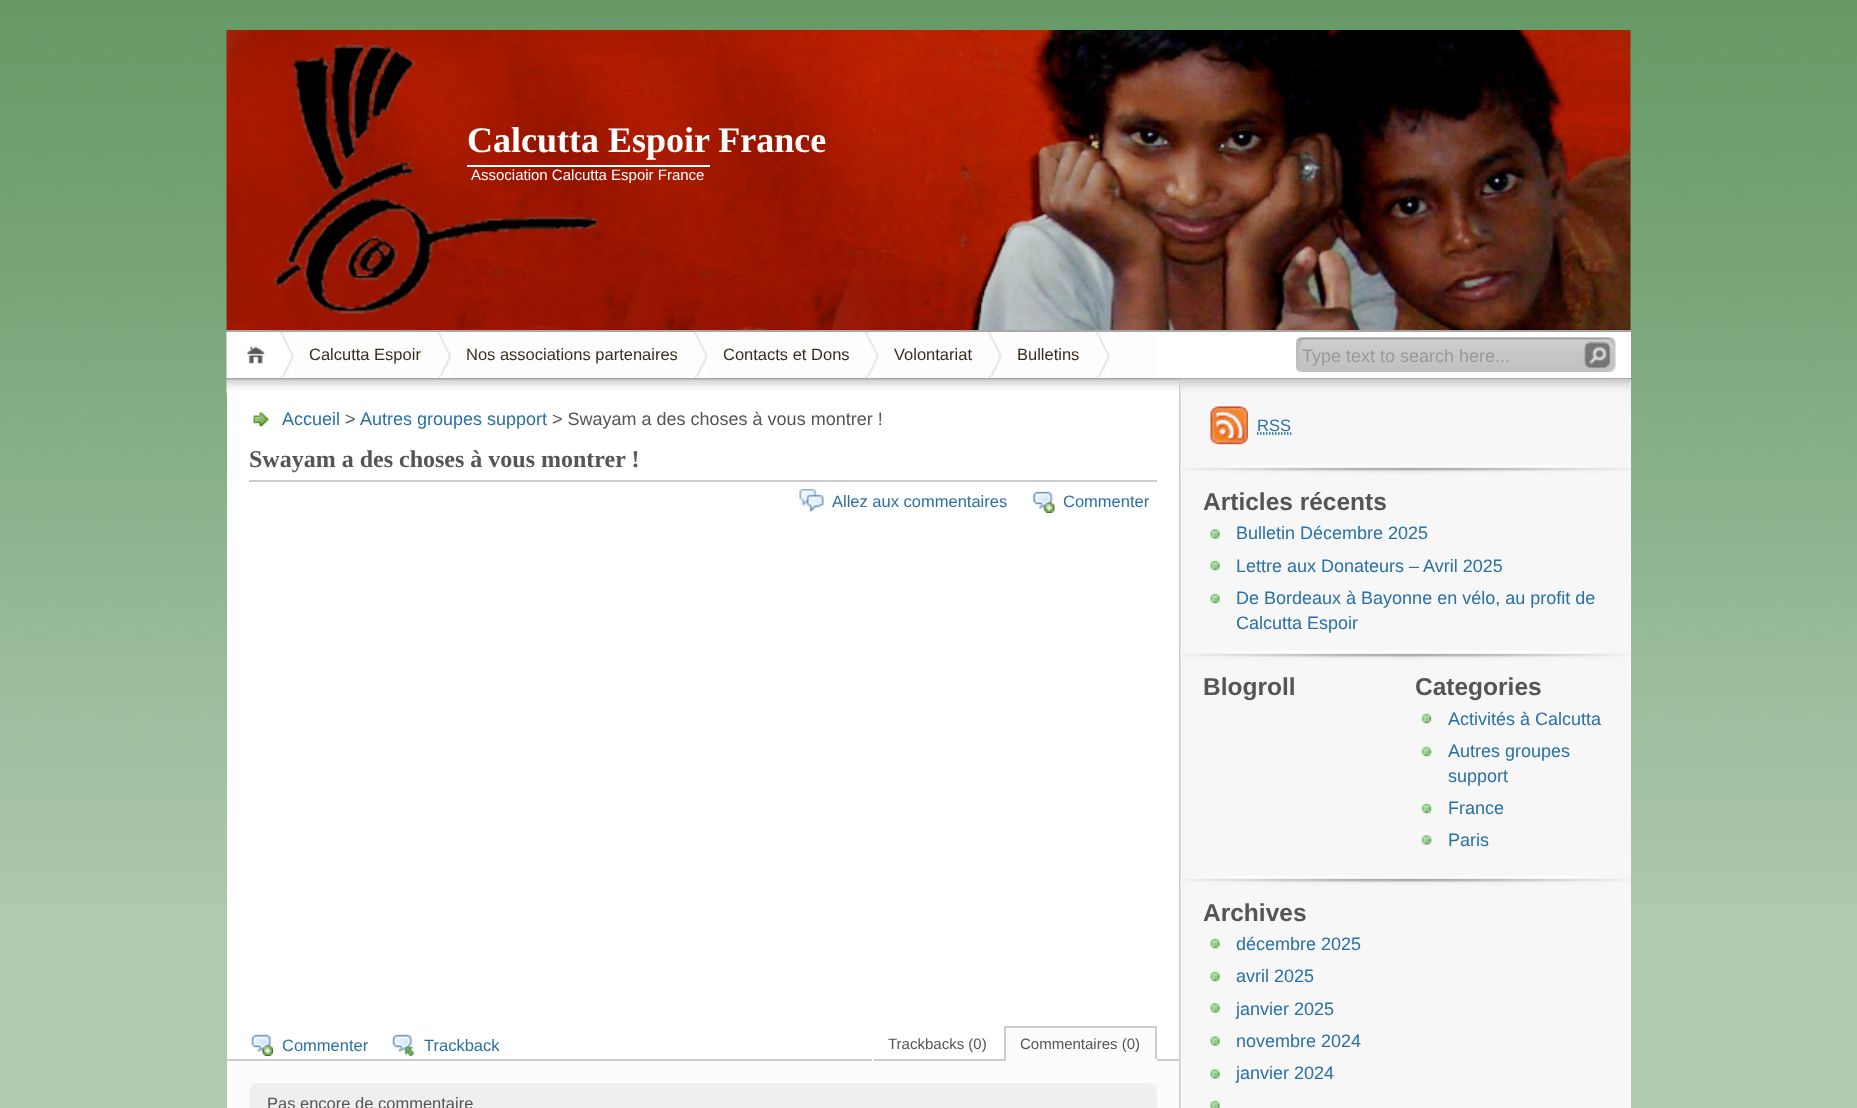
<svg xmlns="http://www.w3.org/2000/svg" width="1857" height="1108">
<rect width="100%" height="100%" fill="#afcab0"/>
<image x="0" y="0" width="1857" height="904" href="media/1.png"/>
<image x="226" y="30" width="1405" height="300" href="media/2.png"/>
<image x="226" y="331" width="66" height="47" href="media/3.png"/>
<rect x="227" y="330" width="1404" height="2" fill="#a6a6a6"/>
<text x="467" y="152" style="font-family:Liberation Serif;font-size:36px;font-weight:bold;fill:#fff">Calcutta Espoir France</text>
<rect x="467" y="165" width="243" height="2" fill="#fff"/>
<text x="471" y="180" style="font-family:Liberation Sans;font-size:15px;fill:#fff">Association Calcutta Espoir France</text>
<rect x="1155" y="332" width="476" height="46" fill="#fff"/>
<rect x="227" y="378" width="1404" height="2" fill="#a6a6a6"/>
<image x="280" y="332" width="169" height="46" href="media/4.png"/>
<text x="309" y="360" style="font-family:Liberation Sans;font-size:16.5px;fill:#382e1f">Calcutta Espoir</text>
<image x="438" y="332" width="268" height="46" href="media/5.png"/>
<text x="466" y="360" style="font-family:Liberation Sans;font-size:16.5px;fill:#382e1f">Nos associations partenaires</text>
<image x="694" y="332" width="183" height="46" href="media/6.png"/>
<text x="723" y="360" style="font-family:Liberation Sans;font-size:16.5px;fill:#382e1f">Contacts et Dons</text>
<image x="865" y="332" width="135" height="46" href="media/7.png"/>
<text x="894" y="360" style="font-family:Liberation Sans;font-size:16.5px;fill:#382e1f">Volontariat</text>
<image x="988" y="332" width="120" height="46" href="media/8.png"/>
<text x="1017" y="360" style="font-family:Liberation Sans;font-size:16.5px;fill:#382e1f">Bulletins</text>
<image x="1096" y="332" width="59" height="46" href="media/9.png"/>
<image x="1296" y="337" width="320" height="35" href="media/10.png"/>
<text x="1302" y="362" style="font-family:Liberation Sans;font-size:18px;fill:#999">Type text to search here...</text>
<rect x="227" y="393" width="952" height="666" fill="#fff"/>
<image x="1179" y="379" width="452" height="729" href="media/11.png"/>
<image x="226" y="379" width="953" height="14" href="media/12.png"/>
<image x="253" y="412" width="16" height="16" href="media/13.png"/>
<text x="282" y="425" style="font-family:Liberation Sans;font-size:18px;fill:#2970a6">Accueil</text>
<text x="345" y="425" style="font-family:Liberation Sans;font-size:18px;fill:#555">&gt;</text>
<text x="360" y="425" style="font-family:Liberation Sans;font-size:18px;fill:#2970a6">Autres groupes support</text>
<text x="552" y="425" style="font-family:Liberation Sans;font-size:18px;fill:#555">&gt; Swayam a des choses à vous montrer !</text>
<rect x="249" y="480" width="908" height="2" fill="#ccc"/>
<text x="249" y="467" style="font-family:Liberation Serif;font-size:24px;font-weight:bold;fill:#555">Swayam a des choses à vous montrer !</text>
<image x="799" y="489" width="25" height="23" href="media/14.png"/>
<text x="832" y="507" style="font-family:Liberation Sans;font-size:16.5px;fill:#2970a6">Allez aux commentaires</text>
<image x="1032" y="491" width="23" height="22" href="media/15.png"/>
<text x="1063" y="507" style="font-family:Liberation Sans;font-size:16.5px;fill:#2970a6">Commenter</text>
<image x="250" y="1034" width="23" height="22" href="media/16.png"/>
<text x="282" y="1051" style="font-family:Liberation Sans;font-size:16.5px;fill:#2970a6">Commenter</text>
<image x="391" y="1034" width="23" height="22" href="media/17.png"/>
<text x="424" y="1051" style="font-family:Liberation Sans;font-size:16.5px;fill:#2970a6">Trackback</text>
<rect x="227" y="1059" width="952" height="2" fill="#ccc"/>
<rect x="1002" y="1059" width="2" height="2" fill="#fff"/>
<rect x="1002" y="1059" width="2" height="2" fill="#ccc"/>
<rect x="872" y="1059" width="2" height="2" fill="#fff"/>
<text x="888" y="1049" style="font-family:Liberation Sans;font-size:15px;fill:#555">Trackbacks (0)</text>
<rect x="1006" y="1028" width="149" height="31" fill="#fcfcfc"/>
<rect x="1004" y="1026" width="153" height="2" fill="#ccc"/>
<rect x="1155" y="1026" width="2" height="35" fill="#ccc"/>
<rect x="1004" y="1059" width="153" height="2" fill="#fcfcfc"/>
<rect x="1004" y="1026" width="2" height="35" fill="#ccc"/>
<text x="1020" y="1049" style="font-family:Liberation Sans;font-size:15px;fill:#555">Commentaires (0)</text>
<rect x="227" y="1061" width="952" height="47" fill="#fcfcfc"/>
<rect x="249" y="1083" width="908" height="25" fill="#edeff0"/>
<image x="249" y="1083" width="908" height="6" href="media/18.png"/>
<text x="267" y="1109" style="font-family:Liberation Sans;font-size:16.5px;fill:#555">Pas encore de commentaire</text>
<rect x="1630" y="380" width="1" height="728" fill="#f7f7f7"/>
<image x="1180" y="379" width="451" height="14" href="media/19.png"/>
<image x="1180" y="465" width="450" height="9" href="media/20.png"/>
<image x="1210" y="406" width="38" height="39" href="media/21.png"/>
<text x="1257" y="431" style="font-family:Liberation Sans;font-size:16.5px;fill:#2970a6">RSS</text>
<path d="M1257 434h34.5m-34.5-1h34" fill="none" stroke="#2970a6" stroke-width="1.5" stroke-dasharray="1.5 1.5"/>
<image x="1180" y="651" width="450" height="9" href="media/20.png"/>
<text x="1203" y="510" style="font-family:Liberation Sans;font-size:24.5px;font-weight:bold;fill:#555">Articles récents</text>
<image x="1210" y="529" width="10" height="10" href="media/22.png"/>
<text x="1236" y="539" style="font-family:Liberation Sans;font-size:18px;fill:#2970a6">Bulletin Décembre 2025</text>
<image x="1210" y="560" width="10" height="11" href="media/23.png"/>
<text x="1236" y="572" style="font-family:Liberation Sans;font-size:18px;fill:#2970a6">Lettre aux Donateurs – Avril 2025</text>
<image x="1210" y="593" width="10" height="11" href="media/23.png"/>
<text x="1236" y="604" style="font-family:Liberation Sans;font-size:18px;fill:#2970a6">De Bordeaux à Bayonne en vélo, au profit de</text>
<text x="1236" y="629" style="font-family:Liberation Sans;font-size:18px;fill:#2970a6">Calcutta Espoir</text>
<image x="1180" y="876" width="450" height="9" href="media/20.png"/>
<text x="1203" y="695" style="font-family:Liberation Sans;font-size:24.5px;font-weight:bold;fill:#555">Blogroll</text>
<text x="1415" y="695" style="font-family:Liberation Sans;font-size:24.5px;font-weight:bold;fill:#555">Categories</text>
<image x="1421" y="713" width="11" height="11" href="media/24.png"/>
<text x="1448" y="725" style="font-family:Liberation Sans;font-size:18px;fill:#2970a6">Activités à Calcutta</text>
<image x="1421" y="746" width="11" height="11" href="media/24.png"/>
<text x="1448" y="757" style="font-family:Liberation Sans;font-size:18px;fill:#2970a6">Autres groupes</text>
<text x="1448" y="782" style="font-family:Liberation Sans;font-size:18px;fill:#2970a6">support</text>
<image x="1421" y="803" width="11" height="11" href="media/24.png"/>
<text x="1448" y="814" style="font-family:Liberation Sans;font-size:18px;fill:#2970a6">France</text>
<image x="1421" y="835" width="11" height="10" href="media/25.png"/>
<text x="1448" y="846" style="font-family:Liberation Sans;font-size:18px;fill:#2970a6">Paris</text>
<text x="1203" y="921" style="font-family:Liberation Sans;font-size:24.5px;font-weight:bold;fill:#555">Archives</text>
<image x="1210" y="938" width="10" height="11" href="media/23.png"/>
<text x="1236" y="950" style="font-family:Liberation Sans;font-size:18px;fill:#2970a6">décembre 2025</text>
<image x="1210" y="971" width="10" height="11" href="media/23.png"/>
<text x="1236" y="982" style="font-family:Liberation Sans;font-size:18px;fill:#2970a6">avril 2025</text>
<image x="1210" y="1003" width="10" height="10" href="media/22.png"/>
<text x="1236" y="1015" style="font-family:Liberation Sans;font-size:18px;fill:#2970a6">janvier 2025</text>
<image x="1210" y="1036" width="10" height="10" href="media/22.png"/>
<text x="1236" y="1047" style="font-family:Liberation Sans;font-size:18px;fill:#2970a6">novembre 2024</text>
<image x="1210" y="1069" width="10" height="10" href="media/22.png"/>
<text x="1236" y="1079" style="font-family:Liberation Sans;font-size:18px;fill:#2970a6">janvier 2024</text>
<image x="1210" y="1100" width="10" height="8" href="media/26.png"/>
</svg>
